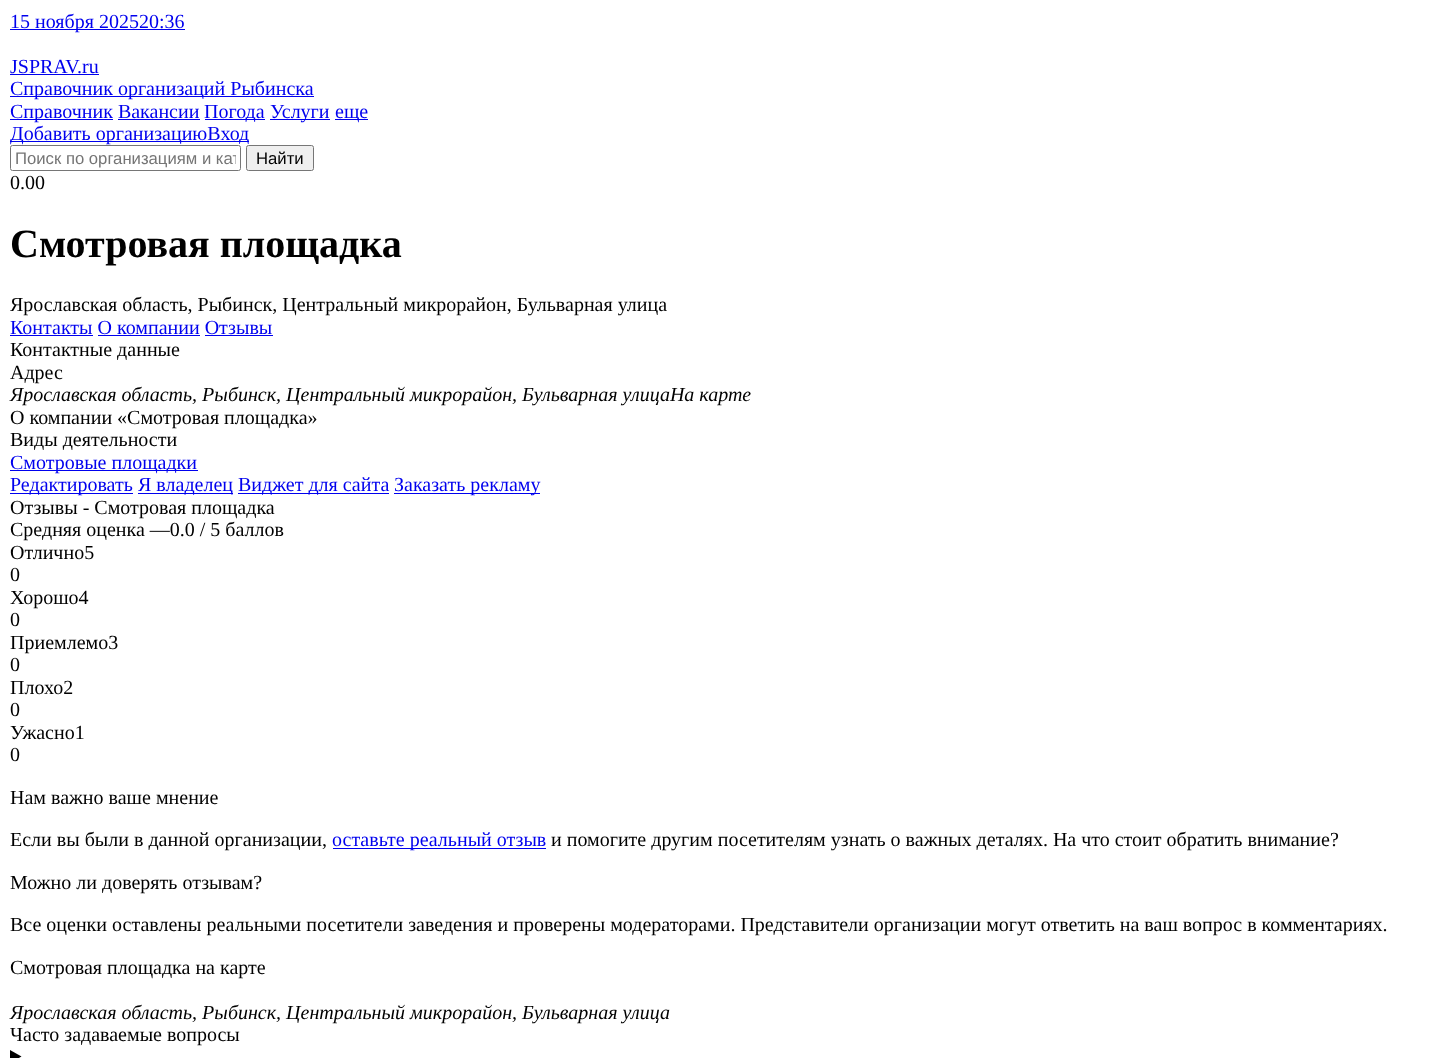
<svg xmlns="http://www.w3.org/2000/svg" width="1434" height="1058">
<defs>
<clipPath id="clip1"><rect x="15" y="149" width="221" height="19"/></clipPath>
</defs>
<rect width="100%" height="100%" fill="#fff"/>
<rect x="10" y="29" width="175" height="1" fill="#00e"/>
<text x="10" y="28" style="font-family:Liberation Serif;font-size:20px;fill:#00e">15 ноября 202520:36</text>
<text x="10" y="73" style="font-family:Liberation Serif;font-size:20px;fill:#00e">JSPRAV.ru</text>
<rect x="10" y="74" width="89" height="1" fill="#00e"/>
<rect x="10" y="96" width="304" height="1" fill="#00e"/>
<text x="10" y="95" style="font-family:Liberation Serif;font-size:20px;fill:#00e">Справочник организаций Рыбинска</text>
<rect x="10" y="119" width="103" height="1" fill="#00e"/>
<text x="10" y="118" style="font-family:Liberation Serif;font-size:20px;fill:#00e">Справочник Вакансии</text>
<rect x="205" y="119" width="60" height="1" fill="#00e"/>
<text x="204" y="118" style="font-family:Liberation Serif;font-size:20px;fill:#00e">Погода</text>
<rect x="270" y="119" width="60" height="1" fill="#00e"/>
<text x="270" y="118" style="font-family:Liberation Serif;font-size:20px;fill:#00e">Услуги</text>
<rect x="335" y="119" width="33" height="1" fill="#00e"/>
<text x="335" y="118" style="font-family:Liberation Serif;font-size:20px;fill:#00e">еще</text>
<rect x="118" y="119" width="82" height="1" fill="#00e"/>
<rect x="10" y="141" width="239" height="1" fill="#00e"/>
<text x="10" y="140" style="font-family:Liberation Serif;font-size:20px;fill:#00e">Добавить организациюВход</text>
<rect x="10.5" y="145.5" width="230" height="25" rx="2" fill="none" stroke="#767676"/>
<g clip-path="url(#clip1)">
<text x="15" y="164" style="font-family:Liberation Sans;font-size:16.7px;fill:#757575">Поиск по организациям и кат</text>
</g>
<rect x="246.5" y="145.5" width="67" height="25" rx="2" fill="#efefef" stroke="#767676"/>
<text x="256" y="164" style="font-family:Liberation Sans;font-size:16.7px;fill:#000">Найти</text>
<text x="10" y="189" style="font-family:Liberation Serif;font-size:20px;fill:#000">0.00</text>
<text x="10" y="257" style="font-family:Liberation Serif;font-size:40px;font-weight:bold;fill:#000">Смотровая площадка</text>
<text x="10" y="311" style="font-family:Liberation Serif;font-size:20px;fill:#000">Ярославская область, Рыбинск, Центральный микрорайон, Бульварная улица</text>
<text x="10" y="334" style="font-family:Liberation Serif;font-size:20px;fill:#00e">Контакты О компании Отзывы</text>
<rect x="10" y="335" width="83" height="1" fill="#00e"/>
<rect x="98" y="335" width="102" height="1" fill="#00e"/>
<rect x="205" y="335" width="68" height="1" fill="#00e"/>
<text x="10" y="356" style="font-family:Liberation Serif;font-size:20px;fill:#000">Контактные данные</text>
<text x="10" y="379" style="font-family:Liberation Serif;font-size:20px;fill:#000">Адрес</text>
<text x="10" y="401" style="font-family:Liberation Serif;font-size:20px;font-style:italic;fill:#000">Ярославская область, Рыбинск, Центральный микрорайон, Бульварная улицаНа карте</text>
<text x="10" y="424" style="font-family:Liberation Serif;font-size:20px;fill:#000">О компании «Смотровая площадка»</text>
<text x="10" y="446" style="font-family:Liberation Serif;font-size:20px;fill:#000">Виды деятельности</text>
<rect x="10" y="470" width="188" height="1" fill="#00e"/>
<text x="10" y="469" style="font-family:Liberation Serif;font-size:20px;fill:#00e">Смотровые площадки</text>
<rect x="10" y="493" width="123" height="1" fill="#00e"/>
<text x="10" y="491" style="font-family:Liberation Serif;font-size:20px;fill:#00e">Редактировать</text>
<rect x="138" y="493" width="95" height="1" fill="#00e"/>
<text x="138" y="491" style="font-family:Liberation Serif;font-size:20px;fill:#00e">Я владелец</text>
<rect x="238" y="493" width="151" height="1" fill="#00e"/>
<text x="238" y="491" style="font-family:Liberation Serif;font-size:20px;fill:#00e">Виджет для сайта</text>
<rect x="394" y="493" width="146" height="1" fill="#00e"/>
<text x="394" y="491" style="font-family:Liberation Serif;font-size:20px;fill:#00e">Заказать рекламу</text>
<text x="10" y="514" style="font-family:Liberation Serif;font-size:20px;fill:#000">Отзывы - Смотровая площадка</text>
<text x="10" y="536" style="font-family:Liberation Serif;font-size:20px;fill:#000">Средняя оценка —0.0 / 5 баллов</text>
<text x="10" y="559" style="font-family:Liberation Serif;font-size:20px;fill:#000">Отлично5</text>
<text x="10" y="581" style="font-family:Liberation Serif;font-size:20px;fill:#000">0</text>
<text x="10" y="604" style="font-family:Liberation Serif;font-size:20px;fill:#000">Хорошо4</text>
<text x="10" y="626" style="font-family:Liberation Serif;font-size:20px;fill:#000">0</text>
<text x="10" y="649" style="font-family:Liberation Serif;font-size:20px;fill:#000">Приемлемо3</text>
<text x="10" y="671" style="font-family:Liberation Serif;font-size:20px;fill:#000">0</text>
<text x="10" y="694" style="font-family:Liberation Serif;font-size:20px;fill:#000">Плохо2</text>
<text x="10" y="716" style="font-family:Liberation Serif;font-size:20px;fill:#000">0</text>
<text x="10" y="739" style="font-family:Liberation Serif;font-size:20px;fill:#000">Ужасно1</text>
<text x="10" y="761" style="font-family:Liberation Serif;font-size:20px;fill:#000">0</text>
<text x="10" y="804" style="font-family:Liberation Serif;font-size:20px;fill:#000">Нам важно ваше мнение</text>
<text x="10" y="846" style="font-family:Liberation Serif;font-size:20px;fill:#000">Если вы были в данной организации,</text>
<rect x="333" y="848" width="213" height="1" fill="#00e"/>
<text x="332" y="846" style="font-family:Liberation Serif;font-size:20px;fill:#00e">оставьте реальный отзыв</text>
<text x="551" y="846" style="font-family:Liberation Serif;font-size:20px;fill:#000">и помогите другим посетителям узнать о важных деталях. На что стоит обратить внимание?</text>
<text x="10" y="889" style="font-family:Liberation Serif;font-size:20px;fill:#000">Можно ли доверять отзывам?</text>
<text x="10" y="931" style="font-family:Liberation Serif;font-size:20px;fill:#000">Все оценки оставлены реальными посетители заведения и проверены модераторами. Представители организации могут ответить на ваш вопрос в комментариях.</text>
<text x="10" y="974" style="font-family:Liberation Serif;font-size:20px;fill:#000">Смотровая площадка на карте</text>
<text x="10" y="1019" style="font-family:Liberation Serif;font-size:20px;font-style:italic;fill:#000">Ярославская область, Рыбинск, Центральный микрорайон, Бульварная улица</text>
<text x="10" y="1041" style="font-family:Liberation Serif;font-size:20px;fill:#000">Часто задаваемые вопросы</text>
<path d="M10 1050l11.5 6.5l-11.5 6.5z" fill="#000"/>
</svg>
